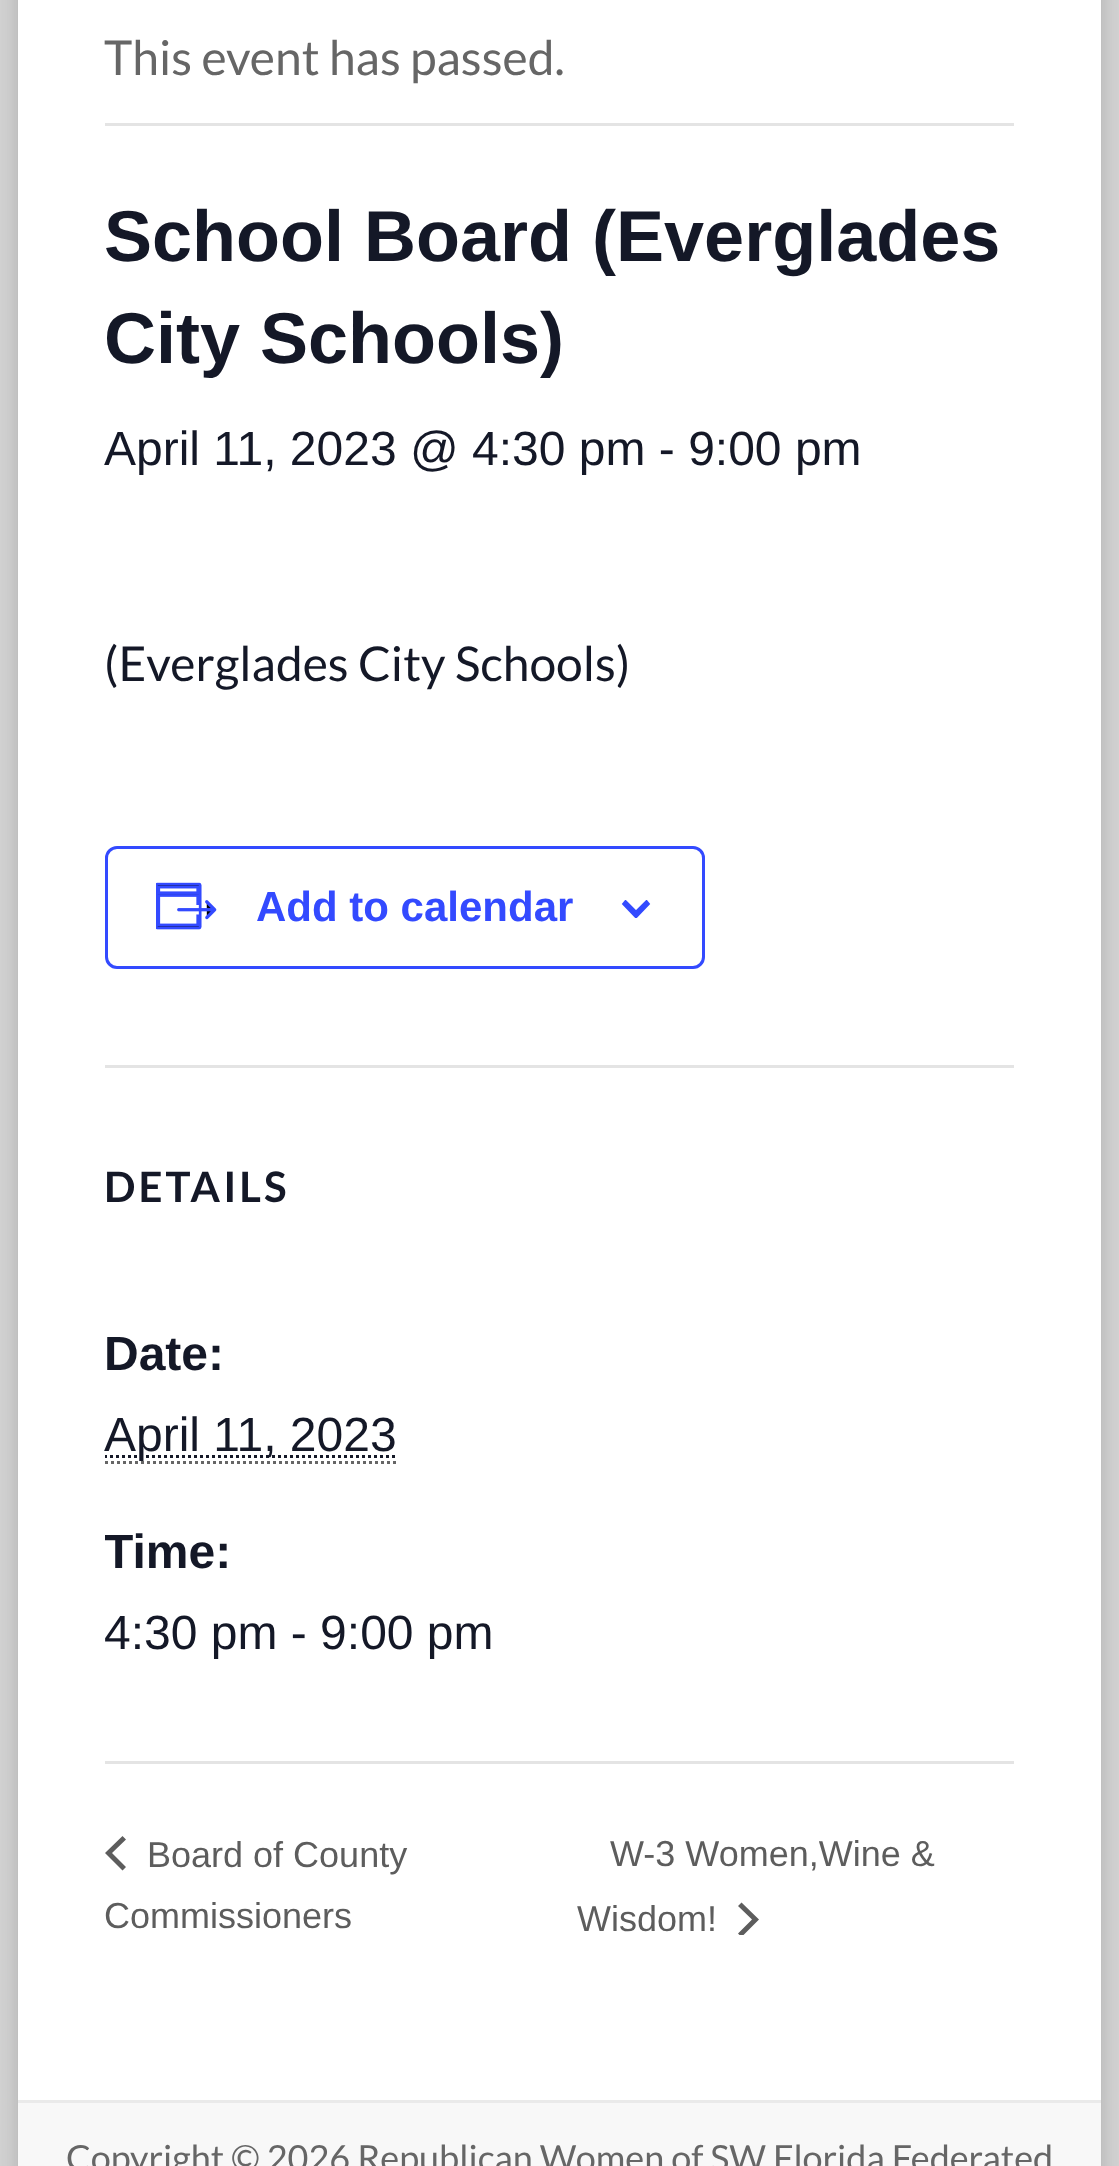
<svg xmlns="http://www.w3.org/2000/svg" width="1119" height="2166">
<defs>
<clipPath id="clip1"><rect x="621" y="900" width="30" height="18"/></clipPath>
<clipPath id="clip2"><rect x="105" y="624" width="909" height="1137"/></clipPath>
<clipPath id="clip3"><rect x="738" y="1902" width="21" height="33"/></clipPath>
</defs>
<rect width="100%" height="100%" fill="#d1d1d1"/>
<rect x="18" y="-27" width="1083" height="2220" fill="#6464644d" filter="blur(9px)"/>
<rect x="18" width="1083" height="2100" fill="#fff"/>
<rect x="105" y="123" width="909" height="3" fill="#e4e4e4"/>
<text x="104" y="75" style="font-family:Lato;font-size:48px;fill:#666">This event has passed.</text>
<text x="104" y="261" style="font-family:Liberation Sans;font-size:72px;font-weight:bold;fill:#141827">School Board (Everglades</text>
<text x="104" y="363" style="font-family:Liberation Sans;font-size:72px;font-weight:bold;fill:#141827">City Schools)</text>
<text x="104" y="465" style="font-family:Liberation Sans;font-size:48px;fill:#141827">April 11, 2023 @ 4:30 pm - 9:00 pm</text>
<text x="104" y="681" style="font-family:Lato;font-size:48px;fill:#141827">(Everglades City Schools)</text>
<rect x="106.5" y="847.5" width="597" height="120" rx="10.5" fill="none" stroke="#334aff" stroke-width="3"/>
<image x="156" y="882" width="61" height="48" href="media/1.png"/>
<text x="256" y="921" style="font-family:Liberation Sans;font-size:42px;font-weight:bold;fill:#334aff">Add to calendar</text>
<path d="M625.5 901.5l10.5 10.5l10.5-10.5l2 2.5l-12.5 13l-12.5-13z" fill="#334aff" fill-rule="evenodd"/>
<g clip-path="url(#clip1)">
<path d="M625.5 901.5l10.5 10.5l10.5-10.5l2 2.5l-12.5 13l-12.5-13z" fill="none" stroke="#334aff" stroke-width="2.6"/>
</g>
<rect x="105" y="1065" width="909" height="3" fill="#e4e4e4"/>
<text x="104" y="1202" style="font-family:Lato;font-size:42px;font-weight:bold;letter-spacing:3px;fill:#141827">DETAILS</text>
<text x="104" y="1370" style="font-family:Liberation Sans;font-size:48px;font-weight:bold;fill:#141827">Date:</text>
<g clip-path="url(#clip2)">
<path d="M104 1456.5h292.5" fill="none" stroke="#141827" stroke-width="3" stroke-dasharray="3 3"/>
</g>
<text x="104" y="1451" style="font-family:Liberation Sans;font-size:48px;fill:#141827">April 11, 2023</text>
<path d="M105 1462.5h291" fill="none" stroke="#666" stroke-width="3" stroke-dasharray="3 3"/>
<g clip-path="url(#clip2)">
<text x="104" y="1568" style="font-family:Liberation Sans;font-size:48px;font-weight:bold;fill:#141827">Time:</text>
</g>
<text x="104" y="1649" style="font-family:Liberation Sans;font-size:48px;fill:#141827">4:30 pm - 9:00 pm</text>
<rect x="105" y="1761" width="909" height="3" fill="#e4e4e4"/>
<path d="M126 1867l-3.5 3.5l-17.5-17.5l17.5-17l3.5 3.5l-14 13.5z" fill="#5d5d5d"/>
<text x="147" y="1867" style="font-family:Liberation Sans;font-size:36px;fill:#5d5d5d">Board of County</text>
<text x="104" y="1928" style="font-family:Liberation Sans;font-size:36px;fill:#5d5d5d">Commissioners</text>
<text x="610" y="1866" style="font-family:Liberation Sans;font-size:36px;fill:#5d5d5d">W-3 Women,Wine &amp;</text>
<text x="577" y="1931" style="font-family:Liberation Sans;font-size:36px;fill:#5d5d5d">Wisdom!</text>
<g clip-path="url(#clip3)">
<path d="M738 1906l3.5-3.5l17.5 17l-17.5 17.5l-3.5-3.5l14-14z" fill="#5d5d5d"/>
</g>
<rect x="18" y="2103" width="1083" height="63" fill="#f8f8f8"/>
<rect x="18" y="2100" width="1083" height="3" fill="#eaeaea"/>
<text x="66" y="2171" style="font-family:Lato;font-size:36px;fill:#666">Copyright © 2026 Republican Women of SW Florida Federated</text>
</svg>
